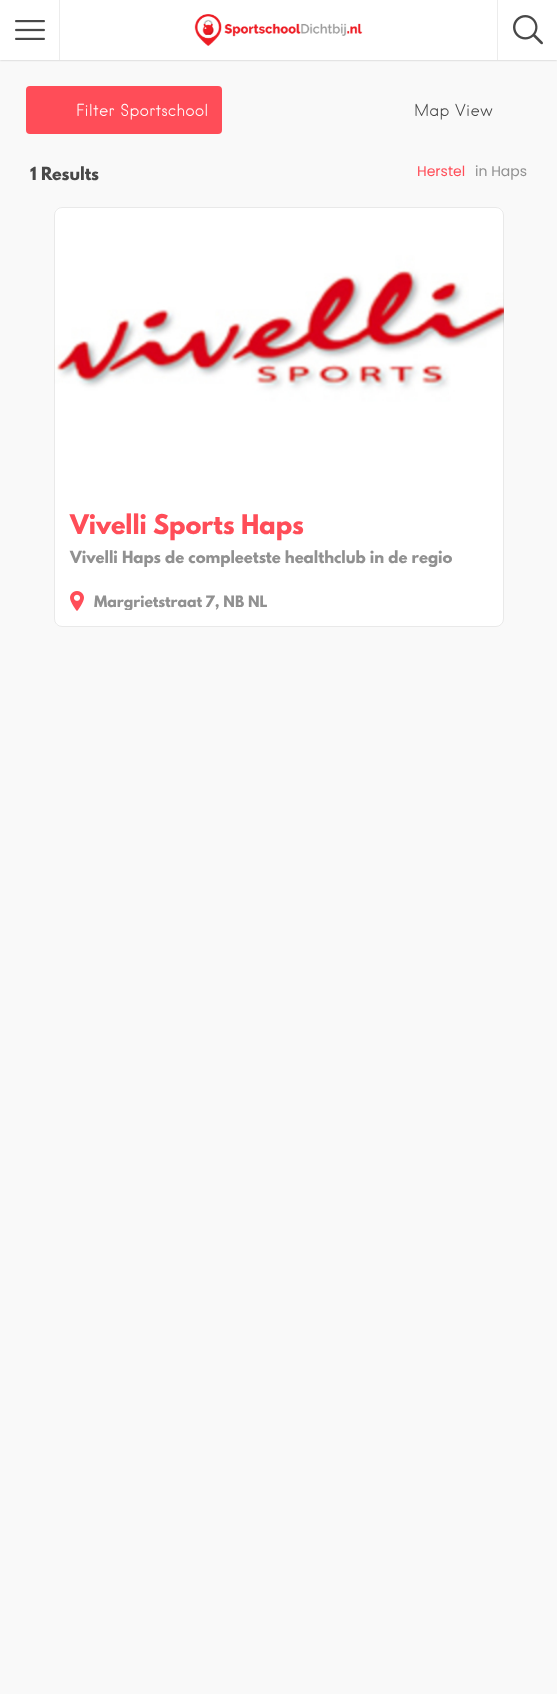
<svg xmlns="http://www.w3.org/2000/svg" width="557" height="1694">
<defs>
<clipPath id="clip1"><rect x="94" y="592" width="394" height="18"/></clipPath>
</defs>
<rect width="100%" height="100%" fill="#f9f9f9"/>
<rect width="557" height="60" fill="#00000040" filter="blur(1px)"/>
<rect width="557" height="60" fill="#fff"/>
<rect x="59" width="1" height="60" fill="#ececec"/>
<image x="15" y="20" width="30" height="20" href="media/1.png"/>
<image x="194" y="14" width="169" height="32" href="media/2.png"/>
<rect x="497" width="1" height="60" fill="#ececec"/>
<image x="513" y="15" width="30" height="30" href="media/3.png"/>
<rect x="26" y="86" width="196" height="48" rx="4" fill="#ff4d58"/>
<text x="76" y="116" style="font-family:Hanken;font-size:16px;font-weight:300;fill:#fff">Filter Sportschool</text>
<text x="414" y="116" style="font-family:Hanken;font-size:16px;font-weight:300;fill:#484848">Map View</text>
<text x="30" y="180" style="font-family:League Spartan;font-size:16px;font-weight:bold;fill:#484848">1 Results</text>
<text x="417" y="176" style="font-family:Poppins;font-size:14px;fill:#ff4d58">Herstel</text>
<text x="475" y="176" style="font-family:Poppins;font-size:14px;fill:#919191">in Haps</text>
<rect x="54" y="207" width="450" height="420" rx="8" fill="#fff"/>
<image x="54" y="207" width="450" height="270" href="media/4.png"/>
<image x="70" y="591" width="14" height="20" href="media/5.png"/>
<rect x="54.5" y="207.5" width="449" height="419" rx="7.5" fill="none" stroke="#91919133"/>
<text x="70" y="534" style="font-family:League Spartan;font-size:24px;font-weight:bold;fill:#ff4d58">Vivelli Sports Haps</text>
<text x="70" y="563" style="font-family:League Spartan;font-size:14.95px;font-weight:bold;fill:#919191">Vivelli Haps de compleetste healthclub in de regio</text>
<g clip-path="url(#clip1)">
<text x="94" y="607" style="font-family:League Spartan;font-size:14px;font-weight:bold;fill:#919191">Margrietstraat</text>
</g>
<text x="205" y="607" style="font-family:League Spartan;font-size:14px;font-weight:bold;fill:#919191">7, NB NL</text>
</svg>
